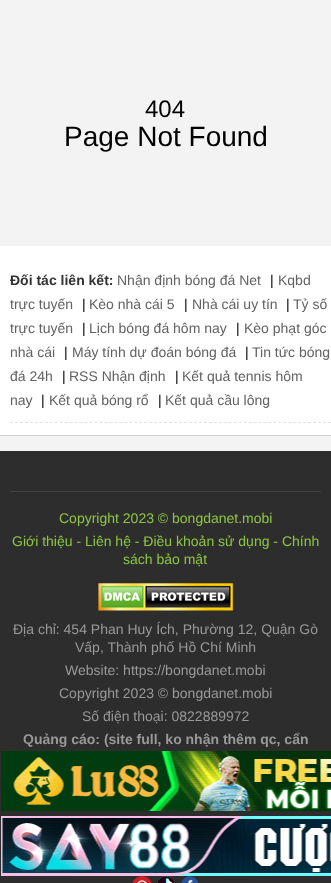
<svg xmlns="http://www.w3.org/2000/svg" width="331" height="883">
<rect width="100%" height="100%" fill="#f3f3f3"/>
<text x="145" y="117" style="font-family:Liberation Sans;font-size:24px;fill:#000">404</text>
<text x="64" y="146" style="font-family:Liberation Sans;font-size:28px;fill:#000">Page Not Found</text>
<rect y="246" width="331" height="189" fill="#fff"/>
<rect y="435" width="331" height="1" fill="#ccc"/>
<path d="M10 422.5h321" fill="none" stroke="#e1e1e1" stroke-dasharray="3 1.97"/>
<text x="10" y="285" style="font-family:Liberation Sans;font-size:14px;font-weight:bold;fill:#333">Đối tác liên kết:</text>
<text x="117" y="285" style="font-family:Liberation Sans;font-size:14px;fill:#626161">Nhận định bóng đá Net</text>
<text x="270" y="285" style="font-family:Liberation Sans;font-size:14px;fill:#000">|</text>
<text x="278" y="285" style="font-family:Liberation Sans;font-size:14px;fill:#626161">Kqbd</text>
<text x="10" y="309" style="font-family:Liberation Sans;font-size:14px;fill:#626161">trực tuyến</text>
<text x="82" y="309" style="font-family:Liberation Sans;font-size:14px;fill:#000">|</text>
<text x="89" y="309" style="font-family:Liberation Sans;font-size:14px;fill:#626161">Kèo nhà cái 5</text>
<text x="184" y="309" style="font-family:Liberation Sans;font-size:14px;fill:#000">|</text>
<text x="192" y="309" style="font-family:Liberation Sans;font-size:14px;fill:#626161">Nhà cái uy tín</text>
<text x="286" y="309" style="font-family:Liberation Sans;font-size:14px;fill:#000">|</text>
<text x="293" y="309" style="font-family:Liberation Sans;font-size:14px;fill:#626161">Tỷ số</text>
<text x="10" y="333" style="font-family:Liberation Sans;font-size:14px;fill:#626161">trực tuyến</text>
<text x="82" y="333" style="font-family:Liberation Sans;font-size:14px;fill:#000">|</text>
<text x="89" y="333" style="font-family:Liberation Sans;font-size:14px;fill:#626161">Lịch bóng đá hôm nay</text>
<text x="236" y="333" style="font-family:Liberation Sans;font-size:14px;fill:#000">|</text>
<text x="244" y="333" style="font-family:Liberation Sans;font-size:14px;fill:#626161">Kèo phạt góc</text>
<text x="10" y="357" style="font-family:Liberation Sans;font-size:14px;fill:#626161">nhà cái</text>
<text x="64" y="357" style="font-family:Liberation Sans;font-size:14px;fill:#000">|</text>
<text x="72" y="357" style="font-family:Liberation Sans;font-size:14px;fill:#626161">Máy tính dự đoán bóng đá</text>
<text x="245" y="357" style="font-family:Liberation Sans;font-size:14px;fill:#000">|</text>
<text x="252" y="357" style="font-family:Liberation Sans;font-size:14px;fill:#626161">Tin tức bóng</text>
<text x="10" y="381" style="font-family:Liberation Sans;font-size:14px;fill:#626161">đá 24h</text>
<text x="62" y="381" style="font-family:Liberation Sans;font-size:14px;fill:#000">|</text>
<text x="69" y="381" style="font-family:Liberation Sans;font-size:14px;fill:#626161">RSS Nhận định</text>
<text x="175" y="381" style="font-family:Liberation Sans;font-size:14px;fill:#000">|</text>
<text x="182" y="381" style="font-family:Liberation Sans;font-size:14px;fill:#626161">Kết quả tennis hôm</text>
<text x="10" y="405" style="font-family:Liberation Sans;font-size:14px;fill:#626161">nay</text>
<text x="41" y="405" style="font-family:Liberation Sans;font-size:14px;fill:#000">|</text>
<text x="49" y="405" style="font-family:Liberation Sans;font-size:14px;fill:#626161">Kết quả bóng rổ</text>
<text x="158" y="405" style="font-family:Liberation Sans;font-size:14px;fill:#000">|</text>
<text x="165" y="405" style="font-family:Liberation Sans;font-size:14px;fill:#626161">Kết quả cầu lông</text>
<rect y="451" width="331" height="432" fill="#2d2d2d"/>
<rect x="10" y="491" width="311" height="1" fill="#404040"/>
<text x="59" y="523" style="font-family:Liberation Sans;font-size:14px;fill:#8dc642">Copyright 2023 © bongdanet.mobi</text>
<text x="12" y="546" style="font-family:Liberation Sans;font-size:14px;fill:#8dc642">Giới thiệu - Liên hệ - Điều khoản sử dụng - Chính</text>
<text x="123" y="564" style="font-family:Liberation Sans;font-size:14px;fill:#8dc642">sách bảo mật</text>
<image x="98" y="583" width="135" height="28" href="media/1.png"/>
<text x="13" y="634" style="font-family:Liberation Sans;font-size:14px;fill:#999">Địa chỉ: 454 Phan Huy Ích, Phường 12, Quận Gò</text>
<text x="75" y="652" style="font-family:Liberation Sans;font-size:14px;fill:#999">Vấp, Thành phố Hồ Chí Minh</text>
<text x="65" y="675" style="font-family:Liberation Sans;font-size:14px;fill:#999">Website: https://bongdanet.mobi</text>
<text x="59" y="698" style="font-family:Liberation Sans;font-size:14px;fill:#999">Copyright 2023 © bongdanet.mobi</text>
<text x="82" y="721" style="font-family:Liberation Sans;font-size:14px;fill:#999">Số điện thoại: 0822889972</text>
<text x="23" y="744" style="font-family:Liberation Sans;font-size:14px;font-weight:bold;fill:#999">Quảng cáo: (site full, ko nhận thêm qc, cẩn</text>
<image x="132" y="876" width="20" height="7" href="media/2.png"/>
<image x="157" y="876" width="18" height="7" href="media/3.png"/>
<image x="181" y="876" width="18" height="7" href="media/4.png"/>
<image x="1" y="751" width="330" height="60" href="media/5.png"/>
<image x="1" y="816" width="330" height="60" href="media/6.png"/>
</svg>
